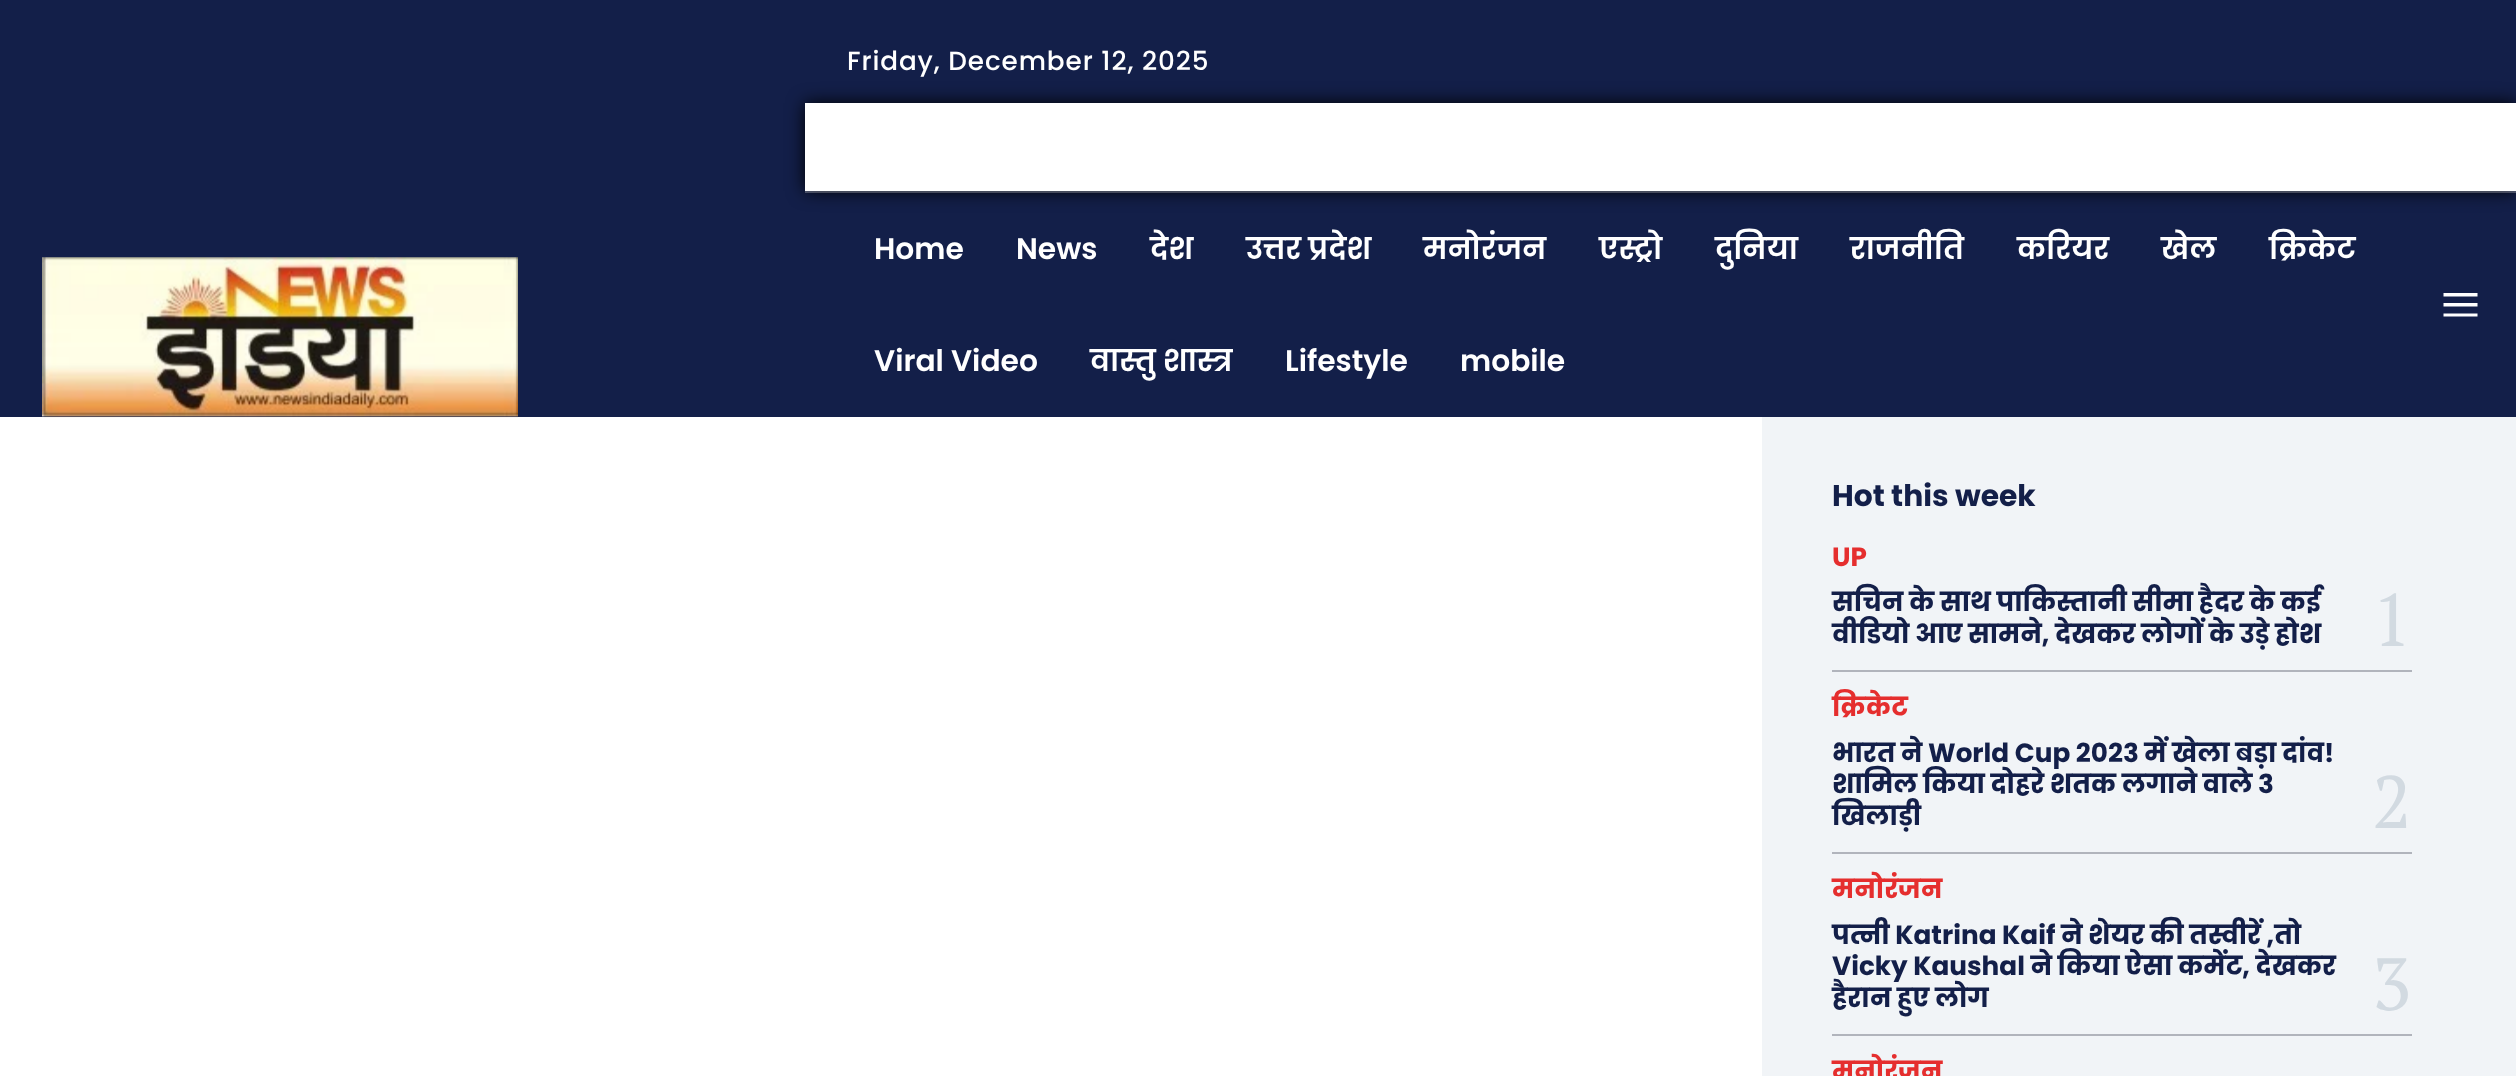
<svg xmlns="http://www.w3.org/2000/svg" width="2516" height="1076">
<rect width="100%" height="100%" fill="#fff"/>
<rect width="2516" height="417" fill="#131f49"/>
<image x="42" y="257" width="476" height="161" href="media/1.png"/>
<text x="847" y="70" style="font-family:Poppins;font-size:26.25px;font-weight:500;letter-spacing:0.9px;fill:#fff">Friday, December 12, 2025</text>
<rect x="805" y="103" width="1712" height="88" fill="#000" filter="blur(9px)"/>
<rect x="805" y="103" width="1711" height="88" fill="#fff"/>
<rect x="805" y="191" width="1711" height="2" fill="#ffffff40"/>
<text x="874" y="259" style="font-family:Poppins;font-size:29.75px;font-weight:600;fill:#fff">Home</text>
<text x="1016" y="259" style="font-family:Poppins;font-size:29.75px;font-weight:600;fill:#fff">News</text>
<text x="1150" y="259" style="font-family:Poppins;font-size:29.75px;font-weight:600;fill:#fff">देश</text>
<text x="1246" y="259" style="font-family:Poppins;font-size:29.75px;font-weight:600;fill:#fff">उत्तर प्रदेश</text>
<text x="1423" y="259" style="font-family:Poppins;font-size:29.75px;font-weight:600;fill:#fff">मनोरंजन</text>
<text x="1599" y="259" style="font-family:Poppins;font-size:29.75px;font-weight:600;fill:#fff">एस्ट्रो</text>
<text x="1715" y="259" style="font-family:Poppins;font-size:29.75px;font-weight:600;fill:#fff">दुनिया</text>
<text x="1850" y="259" style="font-family:Poppins;font-size:29.75px;font-weight:600;fill:#fff">राजनीति</text>
<text x="2017" y="259" style="font-family:Poppins;font-size:29.75px;font-weight:600;fill:#fff">करियर</text>
<text x="2161" y="259" style="font-family:Poppins;font-size:29.75px;font-weight:600;fill:#fff">खेल</text>
<text x="2269" y="259" style="font-family:Poppins;font-size:29.75px;font-weight:600;fill:#fff">क्रिकेट</text>
<text x="874" y="371" style="font-family:Poppins;font-size:29.75px;font-weight:600;fill:#fff">Viral Video</text>
<text x="1090" y="371" style="font-family:Poppins;font-size:29.75px;font-weight:600;fill:#fff">वास्तु शास्त्र</text>
<text x="1285" y="371" style="font-family:Poppins;font-size:29.75px;font-weight:600;fill:#fff">Lifestyle</text>
<text x="1460" y="371" style="font-family:Poppins;font-size:29.75px;font-weight:600;fill:#fff">mobile</text>
<path d="M2477.5 296.5h-34v-3.5h34zm0 10h-34v-3.5h34zm0 10h-34v-3h34z" fill="#fff"/>
<rect x="1762" y="417" width="754" height="659" fill="#f1f4f7"/>
<text x="1832" y="506" style="font-family:Poppins;font-size:29.75px;font-weight:bold;fill:#131f49">Hot this week</text>
<text x="1832" y="566" style="font-family:Poppins;font-size:26.25px;font-weight:bold;fill:#e52e2e">UP</text>
<text x="1832" y="611" style="font-family:Poppins;font-size:26.25px;font-weight:bold;fill:#131f49">सचिन के साथ पाकिस्तानी सीमा हैदर के कई</text>
<text x="1832" y="643" style="font-family:Poppins;font-size:26.25px;font-weight:bold;fill:#131f49">वीडियो आए सामने, देखकर लोगों के उड़े होश</text>
<rect x="1832" y="670" width="580" height="2" fill="#b1b4bc"/>
<text x="2372" y="646" style="font-family:PT Serif;font-size:74px;fill:#d2dae1">1</text>
<text x="1832" y="716" style="font-family:Poppins;font-size:26.25px;font-weight:bold;fill:#e52e2e">क्रिकेट</text>
<text x="1832" y="762" style="font-family:Poppins;font-size:26.25px;font-weight:bold;fill:#131f49">भारत ने World Cup 2023 में खेला बड़ा दांव!</text>
<text x="1832" y="793" style="font-family:Poppins;font-size:26.25px;font-weight:bold;fill:#131f49">शामिल किया दोहरे शतक लगाने वाले 3</text>
<text x="1832" y="825" style="font-family:Poppins;font-size:26.25px;font-weight:bold;fill:#131f49">खिलाड़ी</text>
<rect x="1832" y="852" width="580" height="2" fill="#b1b4bc"/>
<text x="2372" y="828" style="font-family:PT Serif;font-size:74px;fill:#d2dae1">2</text>
<text x="1832" y="898" style="font-family:Poppins;font-size:26.25px;font-weight:bold;fill:#e52e2e">मनोरंजन</text>
<text x="1832" y="944" style="font-family:Poppins;font-size:26.25px;font-weight:bold;fill:#131f49">पत्नी Katrina Kaif ने शेयर की तस्वीरें ,तो</text>
<text x="1832" y="975" style="font-family:Poppins;font-size:26.25px;font-weight:bold;fill:#131f49">Vicky Kaushal ने किया ऐसा कमेंट, देखकर</text>
<text x="1832" y="1007" style="font-family:Poppins;font-size:26.25px;font-weight:bold;fill:#131f49">हैरान हुए लोग</text>
<rect x="1832" y="1034" width="580" height="2" fill="#b1b4bc"/>
<text x="2372" y="1010" style="font-family:PT Serif;font-size:74px;fill:#d2dae1">3</text>
<text x="1832" y="1080" style="font-family:Poppins;font-size:26.25px;font-weight:bold;fill:#e52e2e">मनोरंजन</text>
</svg>
